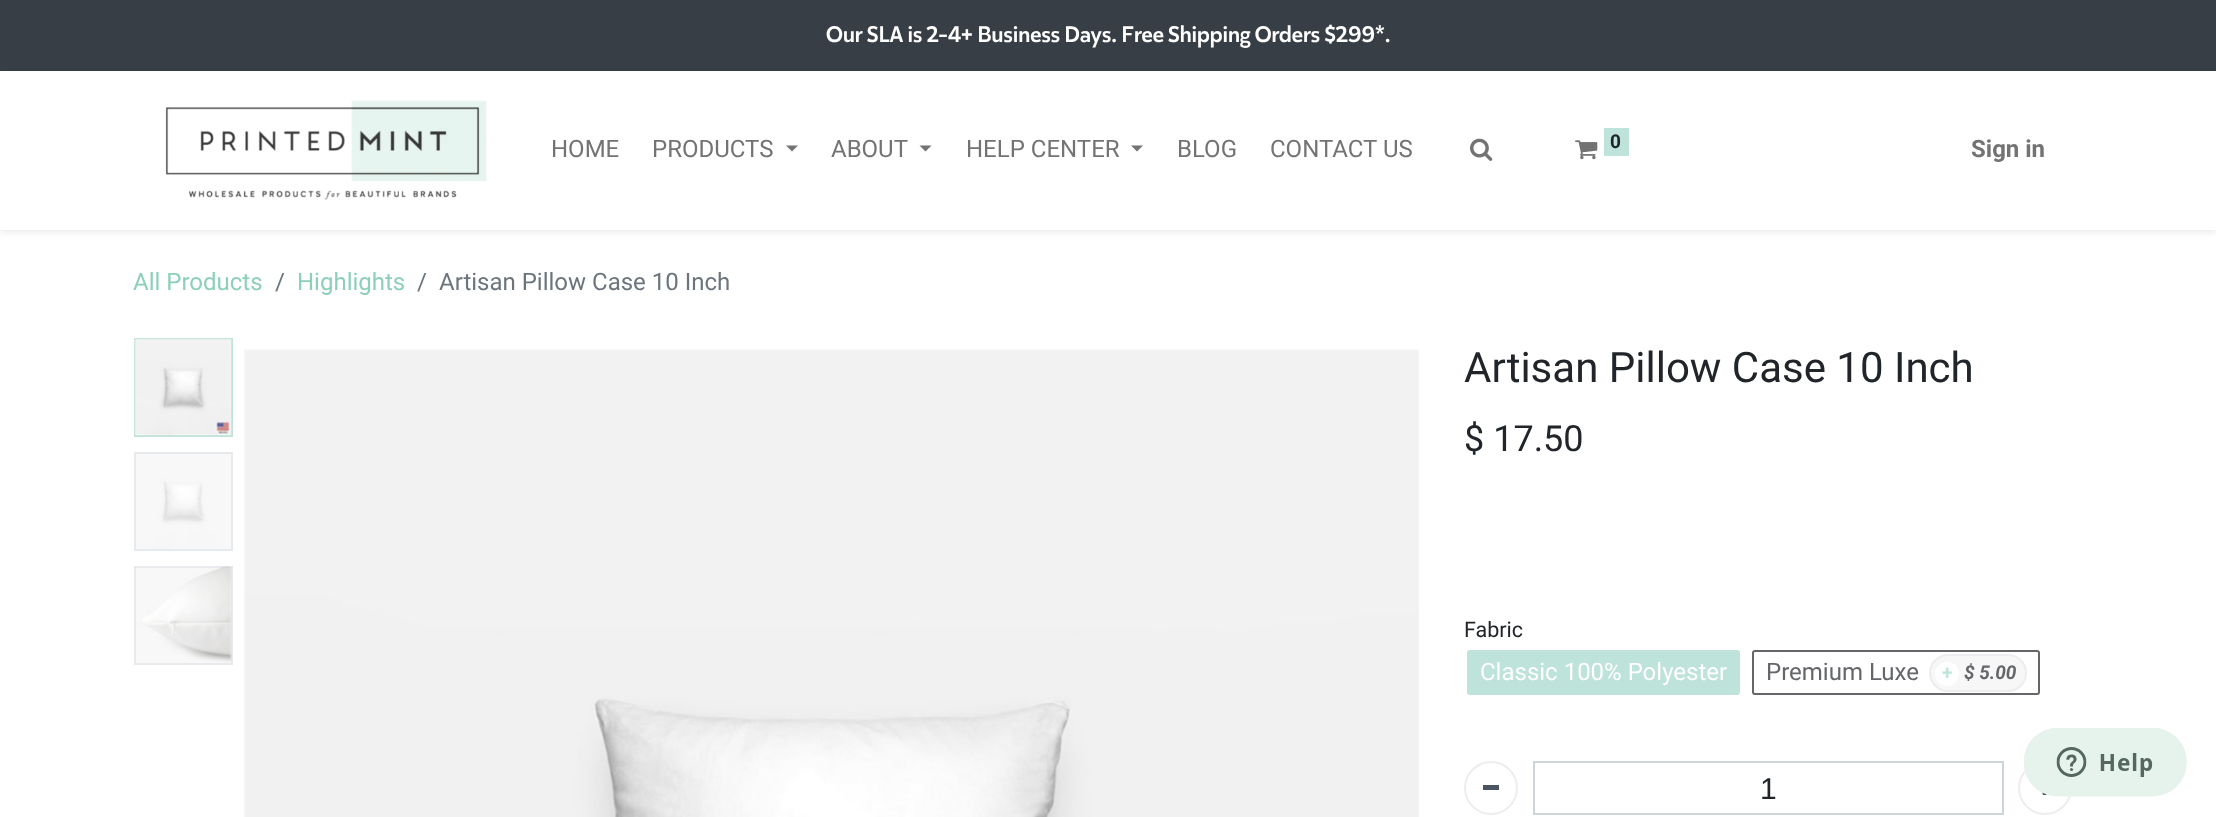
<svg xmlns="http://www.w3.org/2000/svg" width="2216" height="817">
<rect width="100%" height="100%" fill="#fff"/>
<rect width="2216" height="71" fill="#383e45"/>
<text x="826" y="42" style="font-family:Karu;font-size:22.5px;font-weight:500;fill:#fff">Our SLA is 2-4+ Business Days. Free Shipping Orders $299*.</text>
<rect y="74" width="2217" height="159" fill="#00000012" filter="blur(3px)"/>
<rect y="71" width="2216" height="159" fill="#fff"/>
<image x="165" y="100" width="322" height="100" href="media/1.png"/>
<text x="551" y="157" style="font-family:Roboto;font-size:24px;fill:#737373">HOME</text>
<text x="652" y="157" style="font-family:Roboto;font-size:24px;fill:#737373">PRODUCTS</text>
<path d="M786 145.5h12l-6 6z" fill="#737373"/>
<text x="831" y="157" style="font-family:Roboto;font-size:24px;fill:#737373">ABOUT</text>
<path d="M919.5 145.5h12l-6 6z" fill="#737373"/>
<text x="966" y="157" style="font-family:Roboto;font-size:24px;fill:#737373">HELP CENTER</text>
<path d="M1131 145.5h12l-6 6z" fill="#737373"/>
<text x="1177" y="157" style="font-family:Roboto;font-size:24px;fill:#737373">BLOG</text>
<text x="1270" y="157" style="font-family:Roboto;font-size:24px;fill:#737373">CONTACT US</text>
<image x="1470" y="138" width="23" height="23" href="media/2.png"/>
<image x="1575" y="140" width="23" height="20" href="media/3.png"/>
<rect x="1604" y="128" width="25" height="28" fill="#bee3da"/>
<text x="1610" y="148" style="font-family:Roboto;font-size:19px;font-weight:bold;fill:#212529">0</text>
<text x="1971" y="157" style="font-family:Roboto;font-size:24px;font-weight:bold;fill:#737373">Sign in</text>
<text x="133" y="290" style="font-family:Roboto;font-size:24px;fill:#8ccfba">All Products</text>
<text x="275" y="290" style="font-family:Roboto;font-size:24px;fill:#6c757d">/</text>
<text x="297" y="290" style="font-family:Roboto;font-size:24px;fill:#8ccfba">Highlights</text>
<text x="417" y="290" style="font-family:Roboto;font-size:24px;fill:#6c757d">/</text>
<text x="439" y="290" style="font-family:Roboto;font-size:24px;fill:#6c757d">Artisan Pillow Case 10 Inch</text>
<rect x="135" y="339" width="97" height="97" fill="none" stroke="#bee3da" stroke-width="2"/>
<image x="134" y="338" width="98" height="98" href="media/4.png"/>
<rect x="135" y="453" width="97" height="97" fill="none" stroke="#e7eaed" stroke-width="2"/>
<image x="136" y="454" width="95" height="95" href="media/5.png"/>
<rect x="135" y="567" width="97" height="97" fill="none" stroke="#e7eaed" stroke-width="2"/>
<image x="136" y="566" width="96" height="97" href="media/6.png"/>
<image x="244" y="349" width="1175" height="468" href="media/7.png"/>
<text x="1464" y="382" style="font-family:Roboto;font-size:42px;fill:#212529">Artisan Pillow Case 10 Inch</text>
<text x="1464" y="451" style="font-family:Roboto;font-size:36px;fill:#212529">$ 17.50</text>
<text x="1464" y="637" style="font-family:Roboto;font-size:21.5px;fill:#212529">Fabric</text>
<rect x="1468" y="651" width="271" height="43" rx="2" fill="#bee3da" stroke="#bee3da" stroke-width="2"/>
<text x="1480" y="680" style="font-family:Roboto;font-size:24px;fill:#fff">Classic 100% Polyester</text>
<rect x="1753" y="651" width="286" height="43" rx="2" fill="none" stroke="#646669" stroke-width="2"/>
<text x="1766" y="680" style="font-family:Roboto;font-size:24px;fill:#646669">Premium Luxe</text>
<rect x="1930" y="655" width="96" height="36" rx="18" fill="#f7f7f7" stroke="#ededed" stroke-width="2"/>
<circle cx="1947" cy="674" r="12" fill="#fff"/>
<text x="1942" y="679" style="font-family:Roboto;font-size:19px;font-weight:bold;fill:#bee3da">+</text>
<text x="1964" y="679" style="font-family:Roboto;font-size:19px;font-weight:bold;font-style:italic;fill:#646669">$ 5.00</text>
<circle cx="1491" cy="788" r="26" fill="none" stroke="#ededed" stroke-width="2"/>
<rect x="1483" y="785" width="16" height="5" fill="#4c5462"/>
<rect x="1534" y="762" width="469" height="52" fill="none" stroke="#ced4da" stroke-width="2"/>
<text x="1760" y="799" style="font-family:Liberation Sans;font-size:30px;fill:#212529">1</text>
<circle cx="2045" cy="788" r="26" fill="none" stroke="#ededed" stroke-width="2"/>
<image x="2037" y="789" width="10" height="6" href="media/8.png"/>
<image x="2024" y="728" width="163" height="69" href="media/9.png"/>
</svg>
